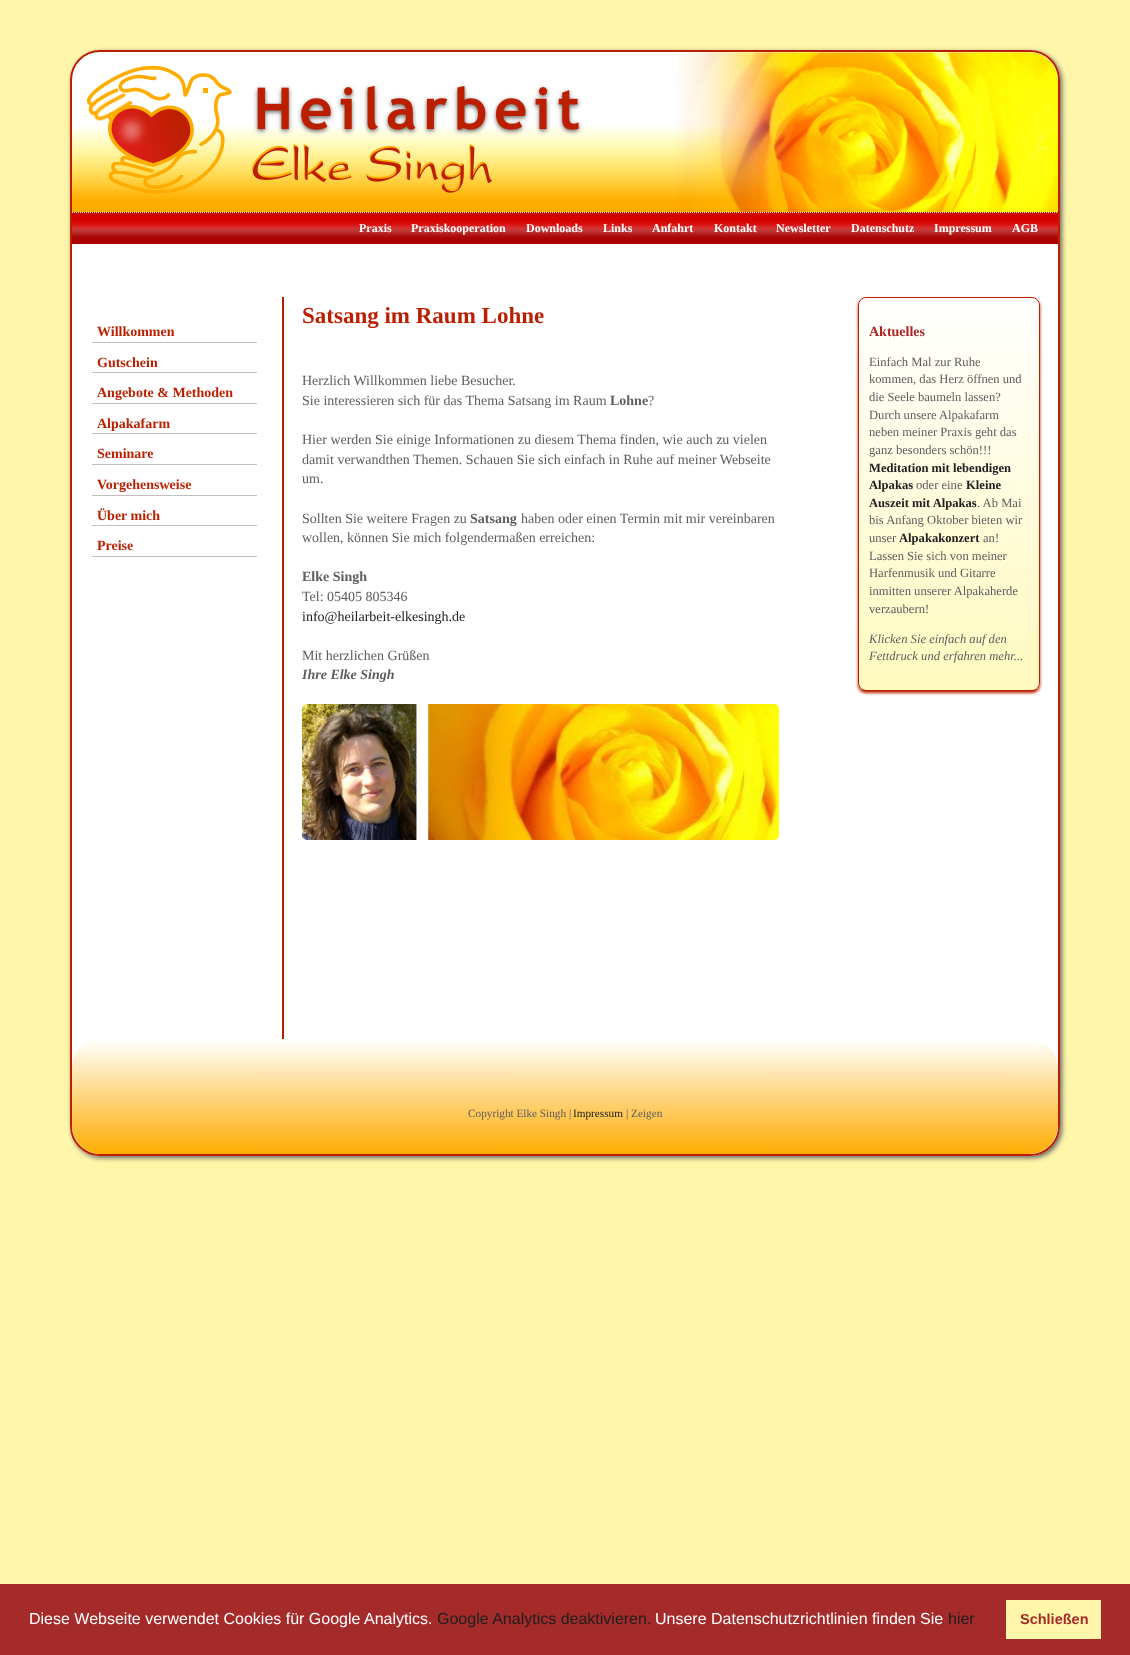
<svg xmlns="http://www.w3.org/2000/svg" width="1130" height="1655">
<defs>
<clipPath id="clip1"><rect x="858" y="297" width="182" height="394" rx="8"/></clipPath>
<linearGradient id="g1" gradientUnits="userSpaceOnUse" x1="949" y1="298" x2="949" y2="690"><stop offset="0" stop-color="#fff"/><stop offset="1" stop-color="#fffabe"/></linearGradient>
<linearGradient id="g2" gradientUnits="userSpaceOnUse" x1="565" y1="1039" x2="565" y2="1154"><stop offset="0" stop-color="#fff"/><stop offset="1" stop-color="#ffac00"/></linearGradient>
</defs>
<rect width="100%" height="100%" fill="#fff6aa"/>
<rect x="72" y="52" width="990" height="1106" rx="30" fill="#666" filter="blur(2.5px)"/>
<rect x="70" y="50" width="990" height="1106" rx="30" fill="#fff"/>
<image x="72" y="126" width="723" height="86" href="media/1.png"/>
<rect x="71" y="51" width="988" height="1104" rx="29" fill="none" stroke="#bc1f00" stroke-width="2"/>
<image x="86" y="65" width="497" height="129" href="media/2.png"/>
<image x="675" y="52" width="383" height="160" href="media/3.png"/>
<image x="72" y="212" width="986" height="32" href="media/4.png"/>
<path d="M72 212.5h986" fill="none" stroke="#e8e8e8" stroke-dasharray="1 1"/>
<text x="359" y="232" style="font-family:Liberation Serif;font-size:12px;font-weight:bold;fill:#fff">Praxis</text>
<text x="411" y="232" style="font-family:Liberation Serif;font-size:12px;font-weight:bold;fill:#fff">Praxiskooperation</text>
<text x="526" y="232" style="font-family:Liberation Serif;font-size:12px;font-weight:bold;fill:#fff">Downloads</text>
<text x="603" y="232" style="font-family:Liberation Serif;font-size:12px;font-weight:bold;fill:#fff">Links</text>
<text x="652" y="232" style="font-family:Liberation Serif;font-size:12px;font-weight:bold;fill:#fff">Anfahrt</text>
<text x="714" y="232" style="font-family:Liberation Serif;font-size:12px;font-weight:bold;fill:#fff">Kontakt</text>
<text x="776" y="232" style="font-family:Liberation Serif;font-size:12px;font-weight:bold;fill:#fff">Newsletter</text>
<text x="851" y="232" style="font-family:Liberation Serif;font-size:12px;font-weight:bold;fill:#fff">Datenschutz</text>
<text x="934" y="232" style="font-family:Liberation Serif;font-size:12px;font-weight:bold;fill:#fff">Impressum</text>
<text x="1012" y="232" style="font-family:Liberation Serif;font-size:12px;font-weight:bold;fill:#fff">AGB</text>
<rect x="92" y="342" width="165" height="1" fill="#c0c0c0"/>
<text x="97" y="336" style="font-family:Liberation Serif;font-size:14px;font-weight:bold;fill:#bc1f00">Willkommen</text>
<rect x="92" y="372" width="165" height="1" fill="#c0c0c0"/>
<text x="97" y="367" style="font-family:Liberation Serif;font-size:14px;font-weight:bold;fill:#bc1f00">Gutschein</text>
<rect x="92" y="403" width="165" height="1" fill="#c0c0c0"/>
<text x="97" y="397" style="font-family:Liberation Serif;font-size:14px;font-weight:bold;fill:#bc1f00">Angebote &amp; Methoden</text>
<rect x="92" y="433" width="165" height="1" fill="#c0c0c0"/>
<text x="97" y="428" style="font-family:Liberation Serif;font-size:14px;font-weight:bold;fill:#bc1f00">Alpakafarm</text>
<rect x="92" y="464" width="165" height="1" fill="#c0c0c0"/>
<text x="97" y="458" style="font-family:Liberation Serif;font-size:14px;font-weight:bold;fill:#bc1f00">Seminare</text>
<rect x="92" y="495" width="165" height="1" fill="#c0c0c0"/>
<text x="97" y="489" style="font-family:Liberation Serif;font-size:14px;font-weight:bold;fill:#bc1f00">Vorgehensweise</text>
<rect x="92" y="525" width="165" height="1" fill="#c0c0c0"/>
<text x="97" y="520" style="font-family:Liberation Serif;font-size:14px;font-weight:bold;fill:#bc1f00">Über mich</text>
<rect x="92" y="556" width="165" height="1" fill="#c0c0c0"/>
<text x="97" y="550" style="font-family:Liberation Serif;font-size:14px;font-weight:bold;fill:#bc1f00">Preise</text>
<rect x="282" y="297" width="2" height="742" fill="#bc1f00"/>
<text x="302" y="323" style="font-family:Liberation Serif;font-size:23px;font-weight:bold;fill:#bc1f00">Satsang im Raum Lohne</text>
<text x="302" y="385" style="font-family:Liberation Serif;font-size:14px;fill:#5e5c5f">Herzlich Willkommen liebe Besucher.</text>
<text x="302" y="405" style="font-family:Liberation Serif;font-size:14px;fill:#5e5c5f">Sie interessieren sich für das Thema Satsang im Raum</text>
<text x="610" y="405" style="font-family:Liberation Serif;font-size:14px;font-weight:bold;fill:#5e5c5f">Lohne</text>
<text x="648" y="405" style="font-family:Liberation Serif;font-size:14px;fill:#5e5c5f">?</text>
<text x="302" y="444" style="font-family:Liberation Serif;font-size:14px;fill:#5e5c5f">Hier werden Sie einige Informationen zu diesem Thema finden, wie auch zu vielen</text>
<text x="302" y="464" style="font-family:Liberation Serif;font-size:14px;fill:#5e5c5f">damit verwandthen Themen. Schauen Sie sich einfach in Ruhe auf meiner Webseite</text>
<text x="302" y="483" style="font-family:Liberation Serif;font-size:14px;fill:#5e5c5f">um.</text>
<text x="302" y="523" style="font-family:Liberation Serif;font-size:14px;fill:#5e5c5f">Sollten Sie weitere Fragen zu</text>
<text x="470" y="523" style="font-family:Liberation Serif;font-size:14px;font-weight:bold;fill:#5e5c5f">Satsang</text>
<text x="521" y="523" style="font-family:Liberation Serif;font-size:14px;fill:#5e5c5f">haben oder einen Termin mit mir vereinbaren</text>
<text x="302" y="542" style="font-family:Liberation Serif;font-size:14px;fill:#5e5c5f">wollen, können Sie mich folgendermaßen erreichen:</text>
<text x="302" y="581" style="font-family:Liberation Serif;font-size:14px;font-weight:bold;fill:#5e5c5f">Elke Singh</text>
<text x="302" y="601" style="font-family:Liberation Serif;font-size:14px;fill:#5e5c5f">Tel: 05405 805346</text>
<text x="302" y="621" style="font-family:Liberation Serif;font-size:14px;fill:#202020">info@heilarbeit-elkesingh.de</text>
<text x="302" y="660" style="font-family:Liberation Serif;font-size:14px;fill:#5e5c5f">Mit herzlichen Grüßen</text>
<text x="302" y="679" style="font-family:Liberation Serif;font-size:14px;font-weight:bold;font-style:italic;fill:#5e5c5f">Ihre Elke Singh</text>
<image x="302" y="704" width="477" height="136" href="media/5.png"/>
<rect x="858" y="299" width="182" height="394" rx="8" fill="#bc1f00" filter="blur(1.5px)"/>
<g clip-path="url(#clip1)">
<rect x="858" y="298" width="182" height="392" fill="url(#g1)"/>
</g>
<rect x="858.5" y="297.5" width="181" height="393" rx="7.5" fill="none" stroke="#bc1f00"/>
<text x="869" y="336" style="font-family:Liberation Serif;font-size:14px;font-weight:bold;fill:#b22222">Aktuelles</text>
<text x="869" y="366" style="font-family:Liberation Serif;font-size:12.6px;fill:#5e5c5f">Einfach Mal zur Ruhe</text>
<text x="869" y="383" style="font-family:Liberation Serif;font-size:12.6px;fill:#5e5c5f">kommen, das Herz öffnen und</text>
<text x="869" y="401" style="font-family:Liberation Serif;font-size:12.6px;fill:#5e5c5f">die Seele baumeln lassen?</text>
<text x="869" y="419" style="font-family:Liberation Serif;font-size:12.6px;fill:#5e5c5f">Durch unsere Alpakafarm</text>
<text x="869" y="436" style="font-family:Liberation Serif;font-size:12.6px;fill:#5e5c5f">neben meiner Praxis geht das</text>
<text x="869" y="454" style="font-family:Liberation Serif;font-size:12.6px;fill:#5e5c5f">ganz besonders schön!!!</text>
<text x="869" y="472" style="font-family:Liberation Serif;font-size:12.6px;font-weight:bold;fill:#202020">Meditation mit lebendigen</text>
<text x="869" y="489" style="font-family:Liberation Serif;font-size:12.6px;font-weight:bold;fill:#202020">Alpakas</text>
<text x="916" y="489" style="font-family:Liberation Serif;font-size:12.6px;fill:#5e5c5f">oder eine</text>
<text x="966" y="489" style="font-family:Liberation Serif;font-size:12.6px;font-weight:bold;fill:#202020">Kleine</text>
<text x="869" y="507" style="font-family:Liberation Serif;font-size:12.6px;font-weight:bold;fill:#202020">Auszeit mit Alpakas</text>
<text x="977" y="507" style="font-family:Liberation Serif;font-size:12.6px;fill:#5e5c5f">. Ab Mai</text>
<text x="869" y="524" style="font-family:Liberation Serif;font-size:12.6px;fill:#5e5c5f">bis Anfang Oktober bieten wir</text>
<text x="869" y="542" style="font-family:Liberation Serif;font-size:12.6px;fill:#5e5c5f">unser</text>
<text x="899" y="542" style="font-family:Liberation Serif;font-size:12.6px;font-weight:bold;fill:#202020">Alpakakonzert</text>
<text x="983" y="542" style="font-family:Liberation Serif;font-size:12.6px;fill:#5e5c5f">an!</text>
<text x="869" y="560" style="font-family:Liberation Serif;font-size:12.6px;fill:#5e5c5f">Lassen Sie sich von meiner</text>
<text x="869" y="577" style="font-family:Liberation Serif;font-size:12.6px;fill:#5e5c5f">Harfenmusik und Gitarre</text>
<text x="869" y="595" style="font-family:Liberation Serif;font-size:12.6px;fill:#5e5c5f">inmitten unserer Alpakaherde</text>
<text x="869" y="613" style="font-family:Liberation Serif;font-size:12.6px;fill:#5e5c5f">verzaubern!</text>
<text x="869" y="643" style="font-family:Liberation Serif;font-size:12.6px;font-style:italic;fill:#5e5c5f">Klicken Sie einfach auf den</text>
<text x="869" y="660" style="font-family:Liberation Serif;font-size:12.6px;font-style:italic;fill:#5e5c5f">Fettdruck und erfahren mehr...</text>
<rect x="72" y="1039" width="986" height="115" rx="29" fill="url(#g2)"/>
<text x="468" y="1117" style="font-family:Liberation Serif;font-size:11.25px;fill:#5e5c5f">Copyright Elke Singh |</text>
<text x="573" y="1117" style="font-family:Liberation Serif;font-size:11.25px;fill:#202020">Impressum</text>
<text x="626" y="1117" style="font-family:Liberation Serif;font-size:11.25px;fill:#5e5c5f">| Zeigen</text>
<rect y="1584" width="1130" height="71" fill="#a52a2a"/>
<text x="29" y="1624" style="font-family:Liberation Sans;font-size:16px;fill:#fff">Diese Webseite verwendet Cookies für Google Analytics.</text>
<text x="437" y="1624" style="font-family:Liberation Sans;font-size:16px;fill:#202020">Google Analytics deaktivieren.</text>
<text x="655" y="1624" style="font-family:Liberation Sans;font-size:16px;fill:#fff">Unsere Datenschutzrichtlinien finden Sie</text>
<text x="948" y="1624" style="font-family:Liberation Sans;font-size:16px;fill:#202020">hier</text>
<rect x="1006" y="1600" width="95" height="39" fill="#fff6aa"/>
<text x="1020" y="1624" style="font-family:Liberation Sans;font-size:14.5px;font-weight:bold;fill:#a52a2a">Schließen</text>
</svg>
